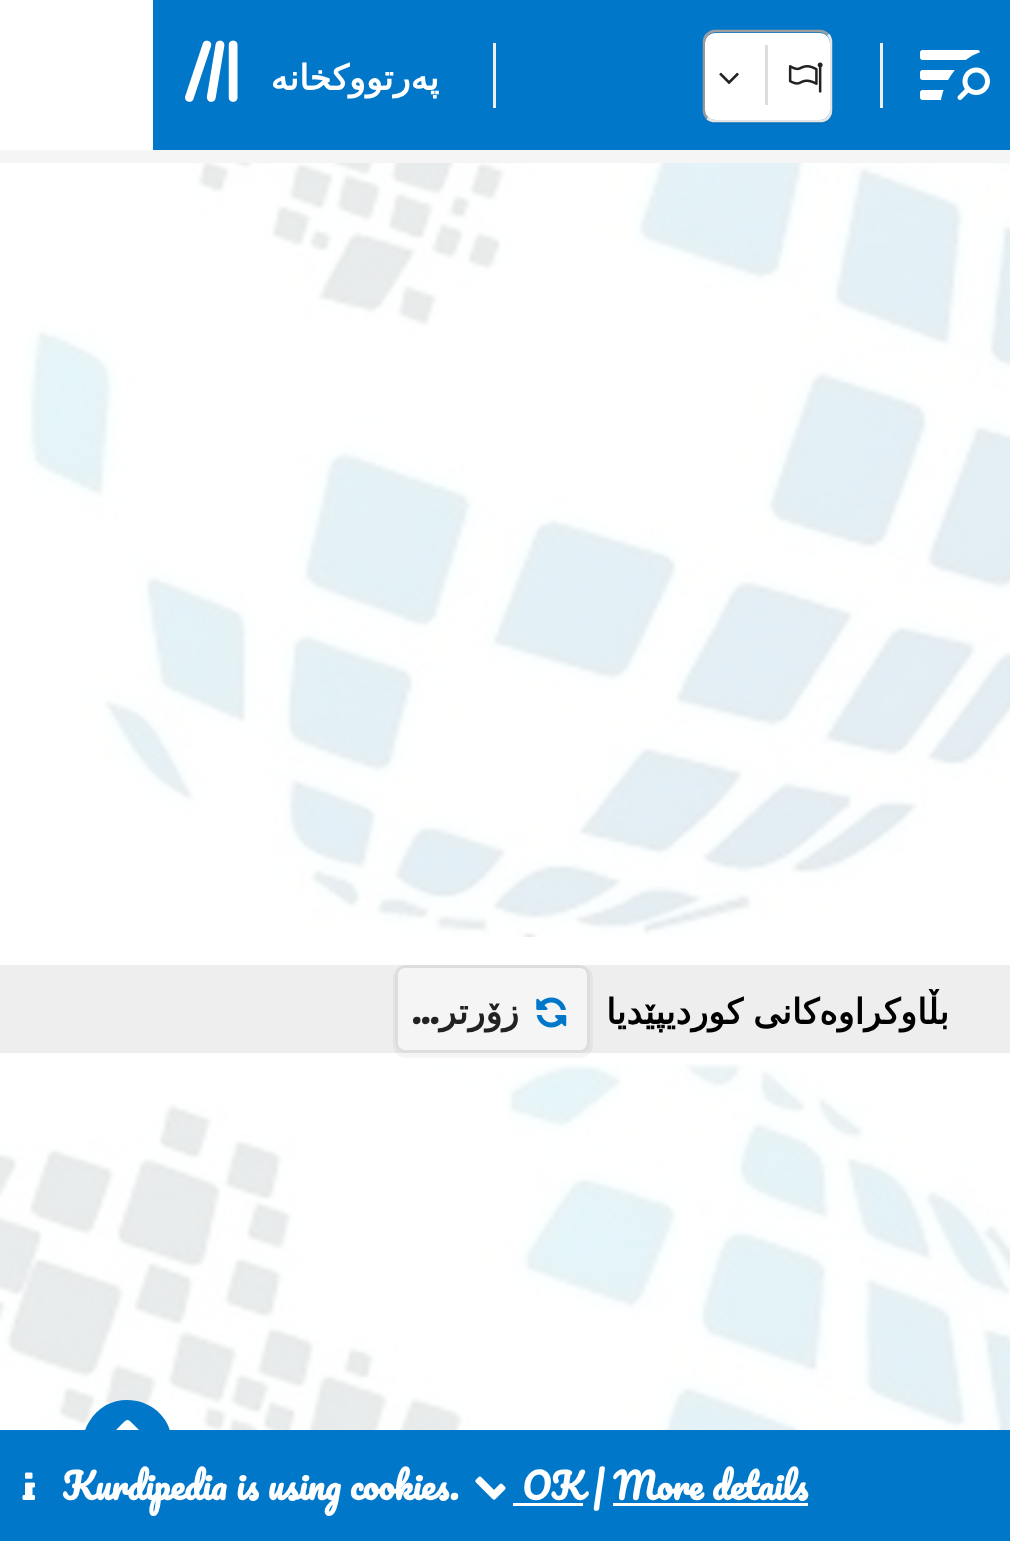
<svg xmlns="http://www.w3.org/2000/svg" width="1010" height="1541">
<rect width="100%" height="100%" fill="#fff"/>
<rect x="153" width="857" height="150" fill="#0077c8"/>
<image x="185" y="40" width="53" height="62" href="media/1.png"/>
<text x="439" y="90" style="font-family:DejaVu Sans;font-size:35px;font-weight:bold;direction:rtl;fill:#fff">پەرتووکخانە</text>
<rect x="493" y="43" width="3" height="65" fill="#eee"/>
<path d="M828 34.5c2 2 3 5 3 8v67.5c0 3-1 6-3 8c-2 2-5 3-8 3h-105c-3 0-6-1-8-3" fill="none" stroke="#eee" stroke-width="2.5"/>
<path d="M707 118c-2-2-3-5-3-8v-67.5c0-3 1-6 3-8c2-2 5-3.5 8-3.5h105c3 0 6 1.5 8 3.5" fill="none" stroke="#9f9f9f" stroke-width="2.5"/>
<path d="M707 37c-3 2-4 5-4 9v66c0 7 6 13 13 13h104c7 0 13-6 13-13v-66c0-5-3-9-7-12c2 2 4 5 4 8v68c0 6-4 10-10 10h-105c-6 0-10-4-10-10v-68c0-2 1-3 2-5z" fill="#0000000a"/>
<rect x="705" y="33" width="125" height="87" rx="10" fill="#fff"/>
<image x="719" y="72" width="20" height="13" href="media/2.png"/>
<rect x="765" y="45" width="3" height="60" fill="#ddd"/>
<image x="788" y="62" width="35" height="31" href="media/3.png"/>
<rect x="880" y="43" width="3" height="65" fill="#eee"/>
<image x="920" y="50" width="60" height="50" href="media/5.png"/>
<path d="M1010 48h-8c-34 0-62 28-62 63v7h70z" fill="#0077c8"/>
<image x="957" y="67" width="33" height="33" href="media/4.png"/>
<rect y="150" width="1010" height="13" fill="#f5f5f5"/>
<image x="0" y="163" width="1010" height="774" href="media/6.png"/>
<rect y="965" width="1010" height="88" fill="#eee"/>
<path d="M593 978c0-7-6-13-13-13c6 0 10 4 10 10v67c0 6-4 10-10 10h-175c-6 0-10-4-10-10v-67c0-3 1-6 4-8c-4 3-6 7-6 11v67c0 7 6 13 13 13h174c7 0 13-6 13-13z" fill="#0000000a"/>
<rect x="396.5" y="966.5" width="192" height="85" rx="8.5" fill="#f5f5f5" stroke="#ddd" stroke-width="3"/>
<text x="439" y="1024" style="font-family:Pacifico;font-size:35px;font-weight:bold;direction:rtl;fill:#222">...</text>
<text x="519" y="1024" style="font-family:DejaVu Sans;font-size:35px;font-weight:bold;direction:rtl;fill:#222">زۆرتر</text>
<image x="536" y="997" width="31" height="31" href="media/7.png"/>
<text x="949" y="1024" word-spacing="-1" style="font-family:DejaVu Sans;font-size:35px;font-weight:bold;direction:rtl;fill:#000">بڵاوکراوەکانی کوردیپێدیا</text>
<image x="0" y="1064" width="1010" height="366" href="media/8.png"/>
<path d="M104 1459c-10-10-9-8 3-20l13-13c8-8 7-8 15 0l22 22c2 3 0 5-2 7c-6 6-6 7-13 1l-14-15l-12 12c-3 2-8 10-12 6zm-15-37c-5 8-7 17-6 26c2 44 61 58 83 20c5-8 7-17 6-26c-2-44-61-58-83-20z" fill="#0077c8"/>
<rect y="1430" width="1010" height="111" fill="#0077c8"/>
<image x="22" y="1472" width="13" height="28" href="media/9.png"/>
<text x="62" y="1500" style="font-family:Pacifico;font-size:35px;font-weight:bold;fill:#fff">Kurdipedia is using cookies.</text>
<image x="475" y="1476" width="31" height="24" href="media/10.png"/>
<rect x="513" y="1503" width="70" height="3" fill="#fff"/>
<text x="522" y="1500" style="font-family:Pacifico;font-size:35px;font-weight:bold;fill:#fff">OK | More details</text>
<rect x="613" y="1503" width="195" height="3" fill="#fff"/>
</svg>
